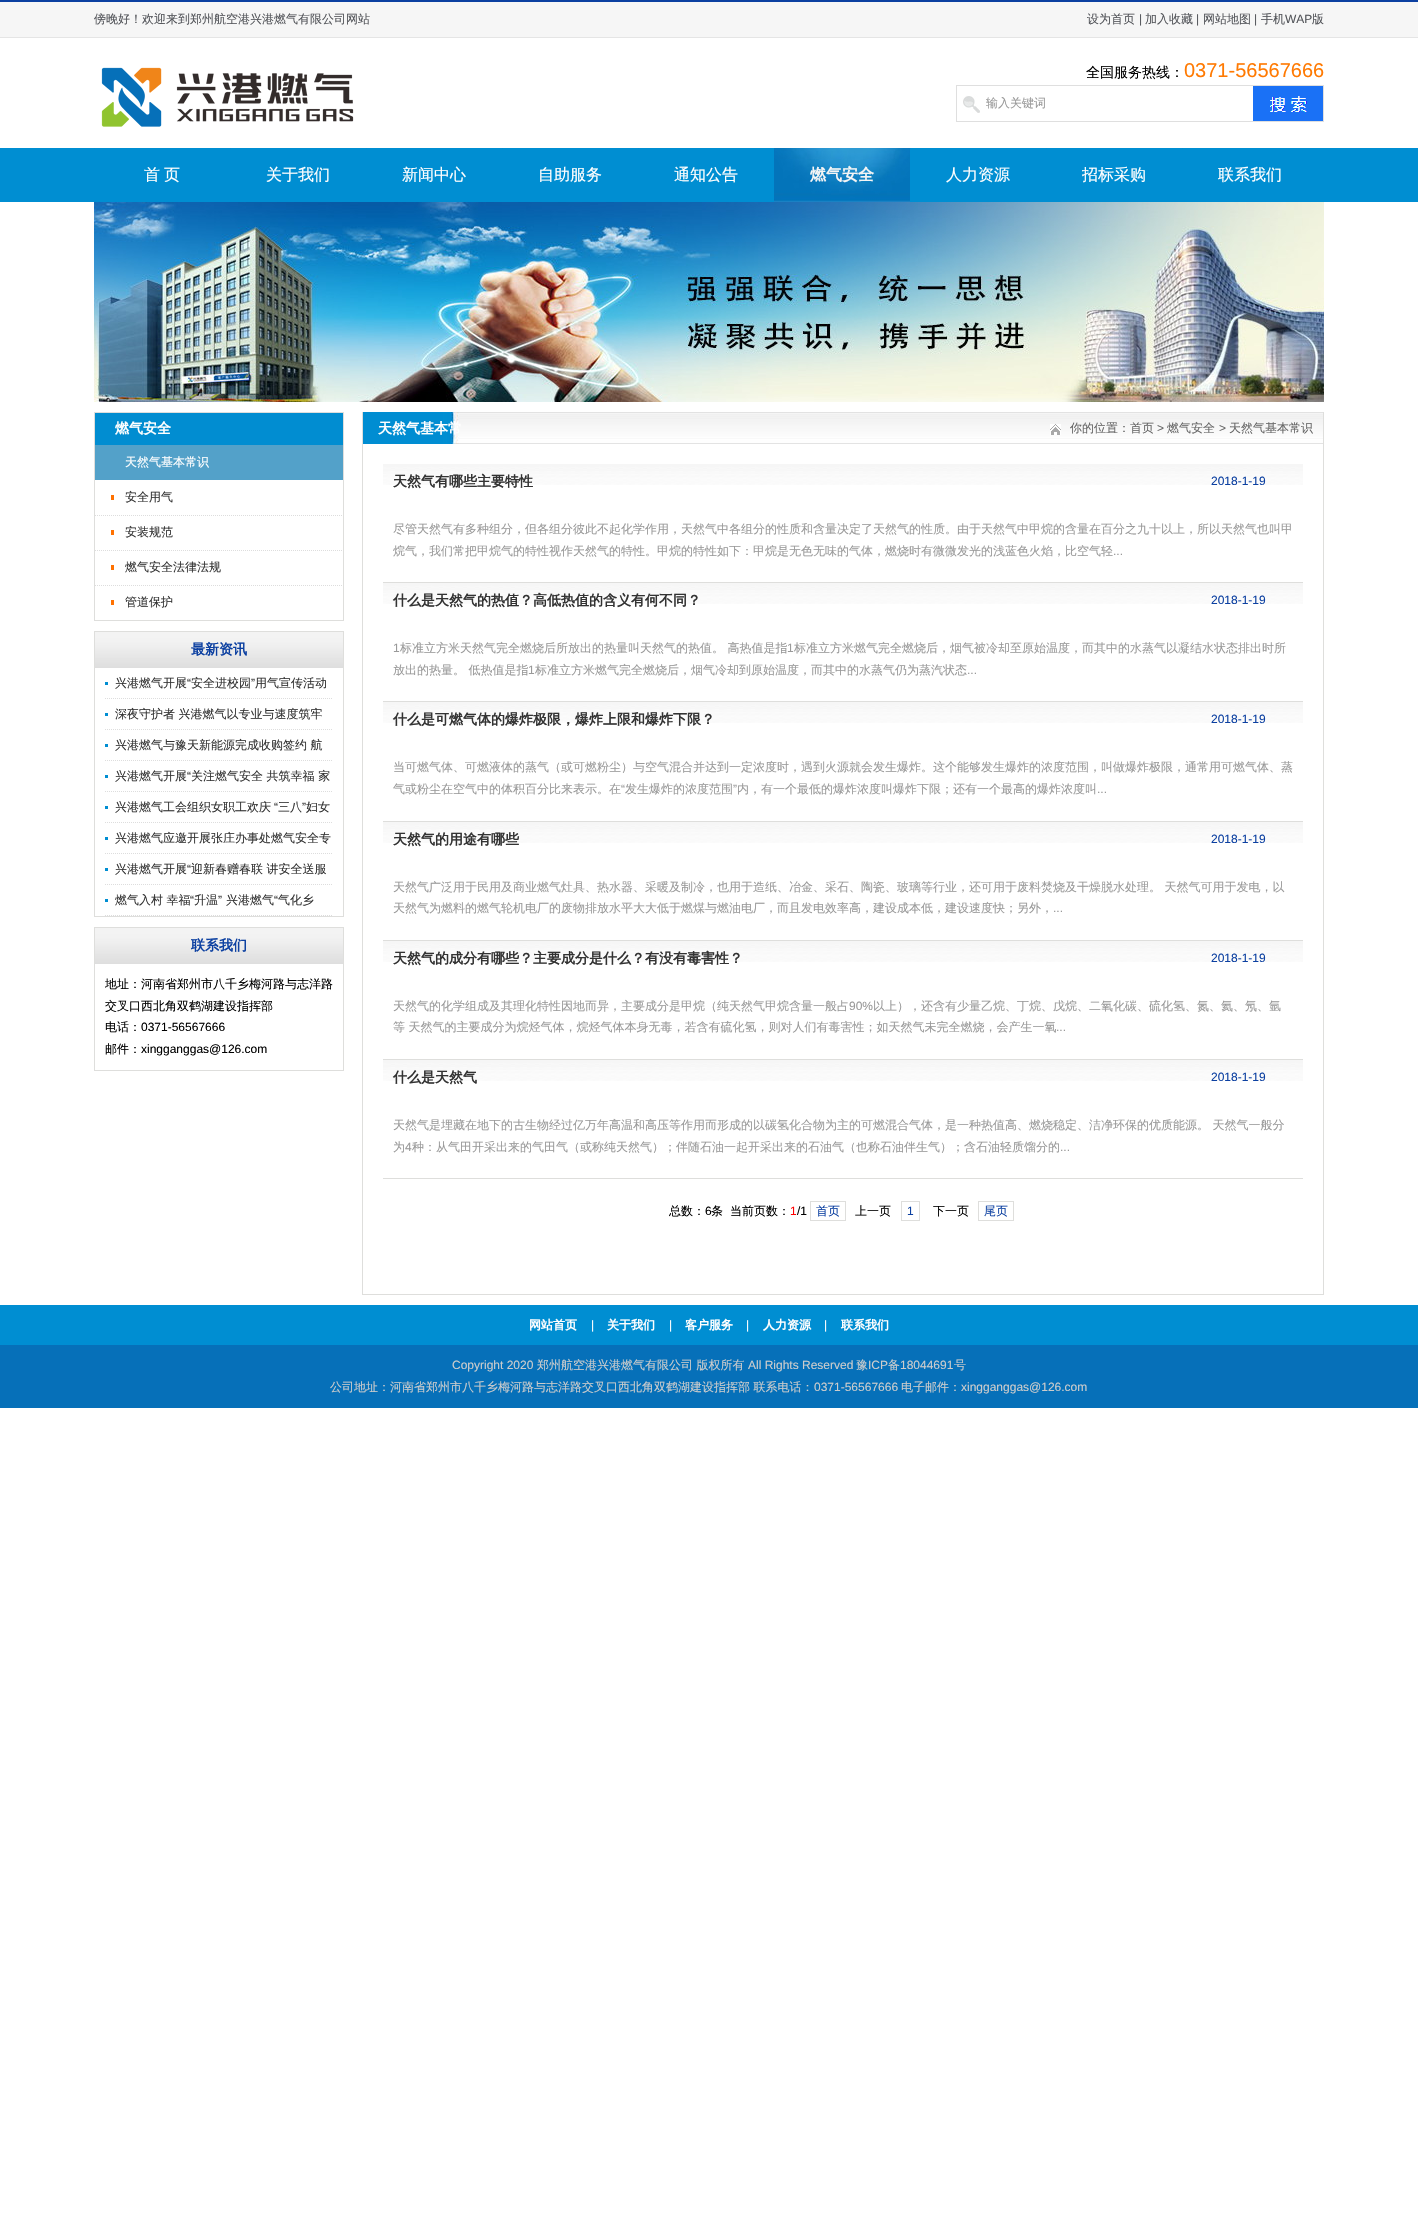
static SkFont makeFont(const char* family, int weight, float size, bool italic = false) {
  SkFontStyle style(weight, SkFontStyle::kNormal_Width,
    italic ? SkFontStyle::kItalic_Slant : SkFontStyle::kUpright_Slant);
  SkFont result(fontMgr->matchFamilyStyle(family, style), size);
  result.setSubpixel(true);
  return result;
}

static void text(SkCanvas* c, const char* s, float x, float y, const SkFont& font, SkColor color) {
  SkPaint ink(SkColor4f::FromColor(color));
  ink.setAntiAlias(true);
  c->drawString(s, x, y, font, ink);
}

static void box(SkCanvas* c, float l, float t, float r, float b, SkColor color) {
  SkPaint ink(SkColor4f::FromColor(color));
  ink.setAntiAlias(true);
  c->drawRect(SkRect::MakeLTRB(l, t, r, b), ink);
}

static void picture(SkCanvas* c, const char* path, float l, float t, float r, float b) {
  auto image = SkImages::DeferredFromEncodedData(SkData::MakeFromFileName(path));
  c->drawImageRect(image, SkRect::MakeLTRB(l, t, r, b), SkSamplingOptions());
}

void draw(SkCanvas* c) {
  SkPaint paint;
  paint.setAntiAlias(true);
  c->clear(0xffffffff);
  box(c, 0, 2, 1418, 37, 0xfff6f6f6);
  box(c, 0, 0, 1418, 2, 0xff0c40a1);
  box(c, 0, 37, 1418, 38, 0xffe5e5e5);
  SkFont face1 = makeFont("WenQuanYi Zen Hei", 500, 12);
  text(c, "傍晚好！欢迎来到郑州航空港兴港燃气有限公司网站", 94, 23, face1, 0xff53555a);
  text(c, "设为首页", 1087, 23, face1, 0xff53555a);
  SkFont face2 = makeFont("Liberation Sans", 400, 12);
  text(c, "|", 1139, 23, face2, 0xff53555a);
  text(c, "加入收藏", 1145, 23, face1, 0xff53555a);
  text(c, "|", 1196, 23, face2, 0xff53555a);
  text(c, "网站地图", 1203, 23, face1, 0xff53555a);
  text(c, "|", 1254, 23, face2, 0xff53555a);
  text(c, "手机", 1261, 23, face1, 0xff53555a);
  text(c, "WAP", 1285, 23, face2, 0xff53555a);
  text(c, "版", 1312, 23, face1, 0xff53555a);
  picture(c, "img_01.png", 101, 67, 354, 127);
  SkFont face3 = makeFont("WenQuanYi Zen Hei", 500, 14);
  text(c, "全国服务热线：", 1086, 77, face3, 0xff000000);
  SkFont face4 = makeFont("Liberation Sans", 400, 20);
  text(c, "0371-56567666", 1184, 77, face4, 0xffff7a02);
  picture(c, "img_02.png", 956, 85, 1324, 122);
  text(c, "输入关键词", 986, 107, face1, 0xff999999);
  box(c, 0, 148, 1418, 202, 0xff008ed2);
  box(c, 94, 148, 95, 149, 0xff0389ce);
  SkFont face5 = makeFont("WenQuanYi Zen Hei", 500, 16);
  text(c, "首", 144, 180, face5, 0xffffffff);
  text(c, "页", 164, 180, face5, 0xffffffff);
  box(c, 230, 148, 231, 149, 0xff0389ce);
  text(c, "关于我们", 266, 180, face5, 0xffffffff);
  box(c, 366, 148, 367, 149, 0xff0389ce);
  text(c, "新闻中心", 402, 180, face5, 0xffffffff);
  box(c, 502, 148, 503, 149, 0xff0389ce);
  text(c, "自助服务", 538, 180, face5, 0xffffffff);
  box(c, 638, 148, 639, 149, 0xff0389ce);
  text(c, "通知公告", 674, 180, face5, 0xffffffff);
  picture(c, "img_03.png", 774, 148, 910, 202);
  SkFont face6 = makeFont("WenQuanYi Zen Hei", 700, 16);
  text(c, "燃气安全", 810, 180, face6, 0xfff5f5f5);
  box(c, 910, 148, 911, 149, 0xff0389ce);
  text(c, "人力资源", 946, 180, face5, 0xffffffff);
  box(c, 1046, 148, 1047, 149, 0xff0389ce);
  text(c, "招标采购", 1082, 180, face5, 0xffffffff);
  box(c, 1182, 148, 1183, 149, 0xff0389ce);
  text(c, "联系我们", 1218, 180, face5, 0xffffffff);
  picture(c, "img_04.png", 94, 202, 1324, 402);
  paint.setStyle(SkPaint::kStroke_Style);
  paint.setStrokeWidth(1);
  paint.setColor(0xffdededc);
  c->drawRect(SkRect::MakeLTRB(94.5f, 412.5f, 343.5f, 620.5f), paint);
  box(c, 95, 413, 343, 445, 0xff018dd1);
  SkFont face7 = makeFont("WenQuanYi Zen Hei", 700, 14);
  text(c, "燃气安全", 115, 433, face7, 0xffffffff);
  box(c, 95, 445, 343, 480, 0xff53a1c9);
  text(c, "天然气基本常识", 125, 466, face1, 0xffffffff);
  box(c, 111, 495, 114, 500, 0xffff7100);
  paint.setColor(0xffdddddd);
  paint.setPathEffect(SkDashPathEffect::Make({{1, 1}}, 0));
  c->drawPath(SkPathBuilder().moveTo(95, 515.5f).lineTo(343, 515.5f).detach(), paint);
  paint.setPathEffect(nullptr);
  text(c, "安全用气", 125, 501, face1, 0xff333333);
  box(c, 111, 530, 114, 535, 0xffff7100);
  paint.setPathEffect(SkDashPathEffect::Make({{1, 1}}, 0));
  c->drawPath(SkPathBuilder().moveTo(95, 550.5f).lineTo(343, 550.5f).detach(), paint);
  paint.setPathEffect(nullptr);
  text(c, "安装规范", 125, 536, face1, 0xff333333);
  box(c, 111, 565, 114, 570, 0xffff7100);
  paint.setPathEffect(SkDashPathEffect::Make({{1, 1}}, 0));
  c->drawPath(SkPathBuilder().moveTo(95, 585.5f).lineTo(343, 585.5f).detach(), paint);
  paint.setPathEffect(nullptr);
  text(c, "燃气安全法律法规", 125, 571, face1, 0xff333333);
  box(c, 111, 600, 114, 605, 0xffff7100);
  text(c, "管道保护", 125, 606, face1, 0xff333333);
  paint.setColor(0xffdededc);
  c->drawRect(SkRect::MakeLTRB(94.5f, 631.5f, 343.5f, 916.5f), paint);
  picture(c, "img_05.png", 95, 632, 343, 668);
  text(c, "最新资讯", 191, 654, face7, 0xff0c40a1);
  box(c, 105, 682, 108, 685, 0xff008ed2);
  paint.setColor(0xffdddddd);
  paint.setPathEffect(SkDashPathEffect::Make({{1, 1}}, 0));
  c->drawPath(SkPathBuilder().moveTo(105, 698.5f).lineTo(333, 698.5f).detach(), paint);
  paint.setPathEffect(nullptr);
  text(c, "兴港燃气开展", 115, 687, face1, 0xff333333);
  text(c, "“", 187, 687, face2, 0xff333333);
  text(c, "安全进校园", 191, 687, face1, 0xff333333);
  text(c, "”", 251, 687, face2, 0xff333333);
  text(c, "用气宣传活动", 255, 687, face1, 0xff333333);
  box(c, 105, 713, 108, 716, 0xff008ed2);
  paint.setPathEffect(SkDashPathEffect::Make({{1, 1}}, 0));
  c->drawPath(SkPathBuilder().moveTo(105, 729.5f).lineTo(333, 729.5f).detach(), paint);
  paint.setPathEffect(nullptr);
  text(c, "深夜守护者 兴港燃气以专业与速度筑牢", 115, 718, face1, 0xff333333);
  box(c, 105, 744, 108, 747, 0xff008ed2);
  paint.setPathEffect(SkDashPathEffect::Make({{1, 1}}, 0));
  c->drawPath(SkPathBuilder().moveTo(105, 760.5f).lineTo(333, 760.5f).detach(), paint);
  paint.setPathEffect(nullptr);
  text(c, "兴港燃气与豫天新能源完成收购签约 航", 115, 749, face1, 0xff333333);
  box(c, 105, 775, 108, 778, 0xff008ed2);
  paint.setPathEffect(SkDashPathEffect::Make({{1, 1}}, 0));
  c->drawPath(SkPathBuilder().moveTo(105, 791.5f).lineTo(333, 791.5f).detach(), paint);
  paint.setPathEffect(nullptr);
  text(c, "兴港燃气开展", 115, 780, face1, 0xff333333);
  text(c, "“", 187, 780, face2, 0xff333333);
  text(c, "关注燃气安全 共筑幸福 家", 191, 780, face1, 0xff333333);
  box(c, 105, 806, 108, 809, 0xff008ed2);
  paint.setPathEffect(SkDashPathEffect::Make({{1, 1}}, 0));
  c->drawPath(SkPathBuilder().moveTo(105, 822.5f).lineTo(333, 822.5f).detach(), paint);
  paint.setPathEffect(nullptr);
  text(c, "兴港燃气工会组织女职工欢庆", 115, 811, face1, 0xff333333);
  text(c, "“", 274, 811, face2, 0xff333333);
  text(c, "三八", 278, 811, face1, 0xff333333);
  text(c, "”", 302, 811, face2, 0xff333333);
  text(c, "妇女", 306, 811, face1, 0xff333333);
  box(c, 105, 837, 108, 840, 0xff008ed2);
  paint.setPathEffect(SkDashPathEffect::Make({{1, 1}}, 0));
  c->drawPath(SkPathBuilder().moveTo(105, 853.5f).lineTo(333, 853.5f).detach(), paint);
  paint.setPathEffect(nullptr);
  text(c, "兴港燃气应邀开展张庄办事处燃气安全专", 115, 842, face1, 0xff333333);
  box(c, 105, 868, 108, 871, 0xff008ed2);
  paint.setPathEffect(SkDashPathEffect::Make({{1, 1}}, 0));
  c->drawPath(SkPathBuilder().moveTo(105, 884.5f).lineTo(333, 884.5f).detach(), paint);
  paint.setPathEffect(nullptr);
  text(c, "兴港燃气开展", 115, 873, face1, 0xff333333);
  text(c, "“", 187, 873, face2, 0xff333333);
  text(c, "迎新春赠春联 讲安全送服", 191, 873, face1, 0xff333333);
  box(c, 105, 899, 108, 902, 0xff008ed2);
  paint.setPathEffect(SkDashPathEffect::Make({{1, 1}}, 0));
  c->drawPath(SkPathBuilder().moveTo(105, 915.5f).lineTo(333, 915.5f).detach(), paint);
  paint.setPathEffect(nullptr);
  text(c, "燃气入村 幸福", 115, 904, face1, 0xff333333);
  text(c, "“", 190, 904, face2, 0xff333333);
  text(c, "升温", 194, 904, face1, 0xff333333);
  text(c, "”", 218, 904, face2, 0xff333333);
  text(c, "兴港燃气", 226, 904, face1, 0xff333333);
  text(c, "“", 274, 904, face2, 0xff333333);
  text(c, "气化乡", 278, 904, face1, 0xff333333);
  paint.setColor(0xffdededc);
  c->drawRect(SkRect::MakeLTRB(94.5f, 927.5f, 343.5f, 1070.5f), paint);
  picture(c, "img_05.png", 95, 928, 343, 964);
  text(c, "联系我们", 191, 950, face7, 0xff0c40a1);
  text(c, "地址：河南省郑州市八千乡梅河路与志洋路", 105, 988, face1, 0xff000000);
  text(c, "交叉口西北角双鹤湖建设指挥部", 105, 1010, face1, 0xff000000);
  text(c, "电话：", 105, 1031, face1, 0xff000000);
  text(c, "0371-56567666", 141, 1031, face2, 0xff000000);
  text(c, "邮件：", 105, 1053, face1, 0xff000000);
  text(c, "xingganggas@126.com", 141, 1053, face2, 0xff000000);
  box(c, 1323, 412, 1324, 1295, 0xffdededc);
  box(c, 362, 1294, 1324, 1295, 0xffdededc);
  box(c, 362, 412, 363, 1295, 0xffdededc);
  picture(c, "img_06.png", 363, 412, 1323, 444);
  text(c, "天然气基本常", 378, 433, face7, 0xffffffff);
  picture(c, "img_07.png", 1050, 424, 1061, 435);
  text(c, "你的位置：首页", 1070, 432, face1, 0xff666666);
  text(c, ">", 1157, 432, face2, 0xff666666);
  text(c, "燃气安全", 1167, 432, face1, 0xff666666);
  text(c, ">", 1219, 432, face2, 0xff666666);
  text(c, "天然气基本常识", 1229, 432, face1, 0xff666666);
  picture(c, "img_08.png", 383, 464, 1211, 485);
  text(c, "天然气有哪些主要特性", 393, 486, face7, 0xff333333);
  picture(c, "img_09.png", 1211, 464, 1303, 485);
  text(c, "2018-1-19", 1211, 485, face2, 0xff0c40a1);
  box(c, 383, 582, 1303, 583, 0xffdededc);
  text(c, "尽管天然气有多种组分，但各组分彼此不起化学作用，天然气中各组分的性质和含量决定了天然气的性质。由于天然气中甲烷的含量在百分之九十以上，所以天然气也叫甲", 393, 533, face1, 0xff999999);
  text(c, "烷气，我们常把甲烷气的特性视作天然气的特性。甲烷的特性如下：甲烷是无色无味的气体，燃烧时有微微发光的浅蓝色火焰，比空气轻", 393, 555, face1, 0xff999999);
  text(c, "...", 1113, 555, face2, 0xff999999);
  picture(c, "img_08.png", 383, 583, 1211, 604);
  text(c, "什么是天然气的热值？高低热值的含义有何不同？", 393, 605, face7, 0xff333333);
  picture(c, "img_09.png", 1211, 583, 1303, 604);
  text(c, "2018-1-19", 1211, 604, face2, 0xff0c40a1);
  box(c, 383, 701, 1303, 702, 0xffdededc);
  text(c, "1", 393, 652, face2, 0xff999999);
  text(c, "标准立方米天然气完全燃烧后所放出的热量叫天然气的热值。 高热值是指", 400, 652, face1, 0xff999999);
  text(c, "1", 787, 652, face2, 0xff999999);
  text(c, "标准立方米燃气完全燃烧后，烟气被冷却至原始温度，而其中的水蒸气以凝结水状态排出时所", 794, 652, face1, 0xff999999);
  text(c, "放出的热量。 低热值是指", 393, 674, face1, 0xff999999);
  text(c, "1", 528, 674, face2, 0xff999999);
  text(c, "标准立方米燃气完全燃烧后，烟气冷却到原始温度，而其中的水蒸气仍为蒸汽状态", 535, 674, face1, 0xff999999);
  text(c, "...", 967, 674, face2, 0xff999999);
  picture(c, "img_08.png", 383, 702, 1211, 723);
  text(c, "什么是可燃气体的爆炸极限，爆炸上限和爆炸下限？", 393, 724, face7, 0xff333333);
  picture(c, "img_09.png", 1211, 702, 1303, 723);
  text(c, "2018-1-19", 1211, 723, face2, 0xff0c40a1);
  box(c, 383, 821, 1303, 822, 0xffdededc);
  text(c, "当可燃气体、可燃液体的蒸气（或可燃粉尘）与空气混合并达到一定浓度时，遇到火源就会发生爆炸。这个能够发生爆炸的浓度范围，叫做爆炸极限，通常用可燃气体、蒸", 393, 771, face1, 0xff999999);
  text(c, "气或粉尘在空气中的体积百分比来表示。在", 393, 793, face1, 0xff999999);
  text(c, "“", 621, 793, face2, 0xff999999);
  text(c, "发生爆炸的浓度范围", 625, 793, face1, 0xff999999);
  text(c, "”", 733, 793, face2, 0xff999999);
  text(c, "内，有一个最低的爆炸浓度叫爆炸下限；还有一个最高的爆炸浓度叫", 737, 793, face1, 0xff999999);
  text(c, "...", 1097, 793, face2, 0xff999999);
  picture(c, "img_08.png", 383, 822, 1211, 843);
  text(c, "天然气的用途有哪些", 393, 844, face7, 0xff333333);
  picture(c, "img_09.png", 1211, 822, 1303, 843);
  text(c, "2018-1-19", 1211, 843, face2, 0xff0c40a1);
  box(c, 383, 940, 1303, 941, 0xffdededc);
  text(c, "天然气广泛用于民用及商业燃气灶具、热水器、采暖及制冷，也用于造纸、冶金、采石、陶瓷、玻璃等行业，还可用于废料焚烧及干燥脱水处理。 天然气可用于发电，以", 393, 891, face1, 0xff999999);
  text(c, "天然气为燃料的燃气轮机电厂的废物排放水平大大低于燃煤与燃油电厂，而且发电效率高，建设成本低，建设速度快；另外，", 393, 912, face1, 0xff999999);
  text(c, "...", 1053, 912, face2, 0xff999999);
  picture(c, "img_08.png", 383, 941, 1211, 962);
  text(c, "天然气的成分有哪些？主要成分是什么？有没有毒害性？", 393, 963, face7, 0xff333333);
  picture(c, "img_09.png", 1211, 941, 1303, 962);
  text(c, "2018-1-19", 1211, 962, face2, 0xff0c40a1);
  box(c, 383, 1059, 1303, 1060, 0xffdededc);
  text(c, "天然气的化学组成及其理化特性因地而异，主要成分是甲烷（纯天然气甲烷含量一般占", 393, 1010, face1, 0xff999999);
  text(c, "90%", 849, 1010, face2, 0xff999999);
  text(c, "以上），还含有少量乙烷、丁烷、戊烷、二氧化碳、硫化氢、氮、氦、氖、氩", 873, 1010, face1, 0xff999999);
  text(c, "等 天然气的主要成分为烷烃气体，烷烃气体本身无毒，若含有硫化氢，则对人们有毒害性；如天然气未完全燃烧，会产生一氧", 393, 1031, face1, 0xff999999);
  text(c, "...", 1056, 1031, face2, 0xff999999);
  picture(c, "img_08.png", 383, 1060, 1211, 1081);
  text(c, "什么是天然气", 393, 1082, face7, 0xff333333);
  picture(c, "img_09.png", 1211, 1060, 1303, 1081);
  text(c, "2018-1-19", 1211, 1081, face2, 0xff0c40a1);
  box(c, 383, 1178, 1303, 1179, 0xffdededc);
  text(c, "天然气是埋藏在地下的古生物经过亿万年高温和高压等作用而形成的以碳氢化合物为主的可燃混合气体，是一种热值高、燃烧稳定、洁净环保的优质能源。 天然气一般分", 393, 1129, face1, 0xff999999);
  text(c, "为", 393, 1151, face1, 0xff999999);
  text(c, "4", 405, 1151, face2, 0xff999999);
  text(c, "种：从气田开采出来的气田气（或称纯天然气）；伴随石油一起开采出来的石油气（也称石油伴生气）；含石油轻质馏分的", 412, 1151, face1, 0xff999999);
  text(c, "...", 1060, 1151, face2, 0xff999999);
  text(c, "总数：", 669, 1215, face1, 0xff000000);
  text(c, "6", 705, 1215, face2, 0xff000000);
  text(c, "条", 711, 1215, face1, 0xff000000);
  text(c, "当前页数：", 730, 1215, face1, 0xff000000);
  text(c, "1", 790, 1215, face2, 0xffff0000);
  text(c, "/1", 797, 1215, face2, 0xff000000);
  c->drawRect(SkRect::MakeLTRB(810.5f, 1201.5f, 845.5f, 1220.5f), paint);
  text(c, "首页", 816, 1215, face1, 0xff0c40a1);
  text(c, "上一页", 855, 1215, face1, 0xff000000);
  c->drawRect(SkRect::MakeLTRB(901.5f, 1201.5f, 919.5f, 1220.5f), paint);
  text(c, "1", 907, 1215, face2, 0xff0c40a1);
  text(c, "下一页", 933, 1215, face1, 0xff000000);
  c->drawRect(SkRect::MakeLTRB(978.5f, 1201.5f, 1013.5f, 1220.5f), paint);
  text(c, "尾页", 984, 1215, face1, 0xff0c40a1);
  box(c, 0, 1345, 1418, 1408, 0xff0670b9);
  box(c, 0, 1305, 1418, 1345, 0xff008ed2);
  SkFont face8 = makeFont("WenQuanYi Zen Hei", 700, 12);
  text(c, "网站首页", 529, 1329, face8, 0xffffffff);
  text(c, "|", 591, 1329, face2, 0xffffffff);
  text(c, "关于我们", 607, 1329, face8, 0xffffffff);
  text(c, "|", 669, 1329, face2, 0xffffffff);
  text(c, "客户服务", 685, 1329, face8, 0xffffffff);
  text(c, "|", 746, 1329, face2, 0xffffffff);
  text(c, "人力资源", 763, 1329, face8, 0xffffffff);
  text(c, "|", 824, 1329, face2, 0xffffffff);
  text(c, "联系我们", 841, 1329, face8, 0xffffffff);
  text(c, "Copyright 2020", 452, 1369, face2, 0xffcccccc);
  text(c, "郑州航空港兴港燃气有限公司 版权所有", 537, 1369, face1, 0xffcccccc);
  text(c, "All Rights Reserved", 748, 1369, face2, 0xffcccccc);
  text(c, "豫", 856, 1369, face1, 0xffcccccc);
  text(c, "ICP", 868, 1369, face2, 0xffcccccc);
  text(c, "备", 888, 1369, face1, 0xffcccccc);
  text(c, "18044691", 900, 1369, face2, 0xffcccccc);
  text(c, "号", 954, 1369, face1, 0xffcccccc);
  text(c, "公司地址：河南省郑州市八千乡梅河路与志洋路交叉口西北角双鹤湖建设指挥部 联系电话：", 330, 1391, face1, 0xffcccccc);
  text(c, "0371-56567666", 814, 1391, face2, 0xffcccccc);
  text(c, "电子邮件：", 901, 1391, face1, 0xffcccccc);
  text(c, "xingganggas@126.com", 961, 1391, face2, 0xffcccccc);
}
